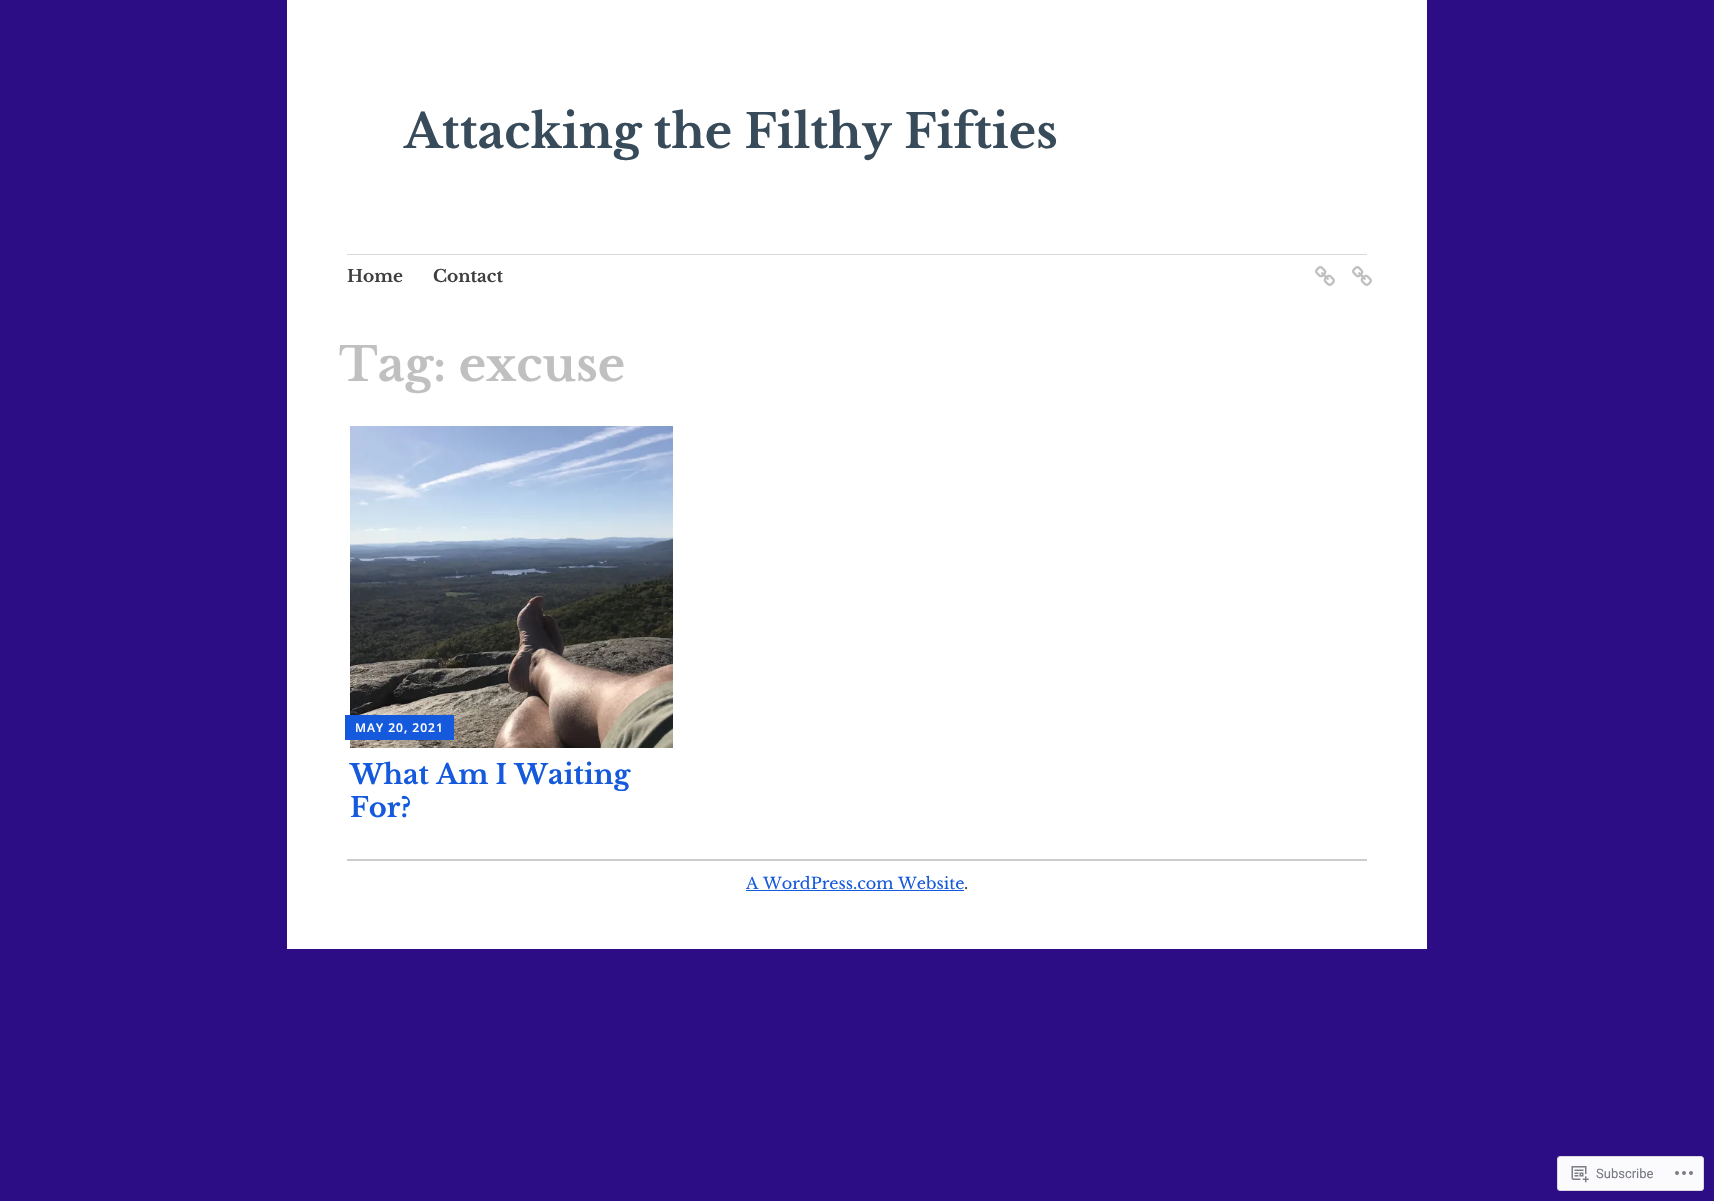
static SkFont makeFont(const char* family, int weight, float size, bool italic = false) {
  SkFontStyle style(weight, SkFontStyle::kNormal_Width,
    italic ? SkFontStyle::kItalic_Slant : SkFontStyle::kUpright_Slant);
  SkFont result(fontMgr->matchFamilyStyle(family, style), size);
  result.setSubpixel(true);
  return result;
}

static void text(SkCanvas* c, const char* s, float x, float y, const SkFont& font, SkColor color) {
  SkPaint ink(SkColor4f::FromColor(color));
  ink.setAntiAlias(true);
  c->drawString(s, x, y, font, ink);
}

static void spacedText(SkCanvas* c, const char* s, float x, float y, const SkFont& font, const SkPaint& ink, float letter, float word) {
  std::vector<SkGlyphID> glyphs(font.countText(s, strlen(s), SkTextEncoding::kUTF8));
  std::vector<float> xs(glyphs.size());
  font.textToGlyphs(s, strlen(s), SkTextEncoding::kUTF8, glyphs);
  font.getXPos(glyphs, xs, x);
  float extra = 0;
  for (size_t i = 0; i < glyphs.size(); i++) {
    xs[i] += extra;
    extra += letter + word * (glyphs[i] == font.unicharToGlyph(' '));
  }
  c->drawTextBlob(SkTextBlob::MakeFromPosHGlyphs(glyphs, xs, y, font), 0, 0, ink);
}

static void box(SkCanvas* c, float l, float t, float r, float b, SkColor color) {
  SkPaint ink(SkColor4f::FromColor(color));
  ink.setAntiAlias(true);
  c->drawRect(SkRect::MakeLTRB(l, t, r, b), ink);
}

static void picture(SkCanvas* c, const char* path, float l, float t, float r, float b) {
  auto image = SkImages::DeferredFromEncodedData(SkData::MakeFromFileName(path));
  c->drawImageRect(image, SkRect::MakeLTRB(l, t, r, b), SkSamplingOptions());
}

void draw(SkCanvas* c) {
  SkPaint paint;
  paint.setAntiAlias(true);
  c->clear(0xff2d0d85);
  box(c, 287, 0, 1427, 949, 0xffffffff);
  SkFont face1 = makeFont("Libre Baskerville", 700, 46.75f);
  text(c, "Attacking the Filthy Fifties", 404, 148, face1, 0xff384b5b);
  box(c, 347, 254, 1367, 255, 0xffd9d9d9);
  SkFont face2 = makeFont("Libre Baskerville", 700, 17);
  text(c, "Home", 347, 282, face2, 0xff404040);
  text(c, "Contact", 433, 282, face2, 0xff404040);
  picture(c, "img_01.png", 1315, 266, 1335, 286);
  picture(c, "img_01.png", 1352, 266, 1372, 286);
  text(c, "Tag: excuse", 339, 381, face1, 0xffc0c0c0);
  picture(c, "img_02.png", 350, 426, 673, 748);
  box(c, 345, 715, 454, 740, 0xff155add);
  SkFont face3 = makeFont("Open Sans", 600, 12);
  paint.setColor(0xffffffff);
  spacedText(c, "MAY 20, 2021", 355, 732, face3, paint, 1, 0);
  SkFont face4 = makeFont("Libre Baskerville", 700, 27.25f);
  text(c, "What Am I Waiting", 350, 784, face4, 0xff155add);
  text(c, "For?", 350, 817, face4, 0xff155add);
  box(c, 347, 859, 1367, 861, 0xffcccccc);
  SkFont face5 = makeFont("Libre Baskerville", 400, 16);
  text(c, "A WordPress.com Website", 746, 889, face5, 0xff155add);
  box(c, 746, 890, 964, 891, 0xff155add);
  text(c, ".", 964, 889, face5, 0xff404040);
  paint.setColor(0xfffbfafd);
  c->drawRoundRect(SkRect::MakeLTRB(1557.5f, 1156.5f, 1703.5f, 1190.5f), 2.5f, 2.5f, paint);
  paint.setStyle(SkPaint::kStroke_Style);
  paint.setStrokeWidth(1);
  paint.setColor(0xffd9d8dc);
  c->drawRoundRect(SkRect::MakeLTRB(1557.5f, 1156.5f, 1703.5f, 1190.5f), 2.5f, 2.5f, paint);
  picture(c, "img_03.png", 1571, 1166, 1589, 1183);
  SkFont face6 = makeFont("Roboto", 400, 13);
  text(c, "Subscribe", 1596, 1178, face6, 0xff777a82);
  picture(c, "img_04.png", 1675, 1171, 1693, 1175);
}
